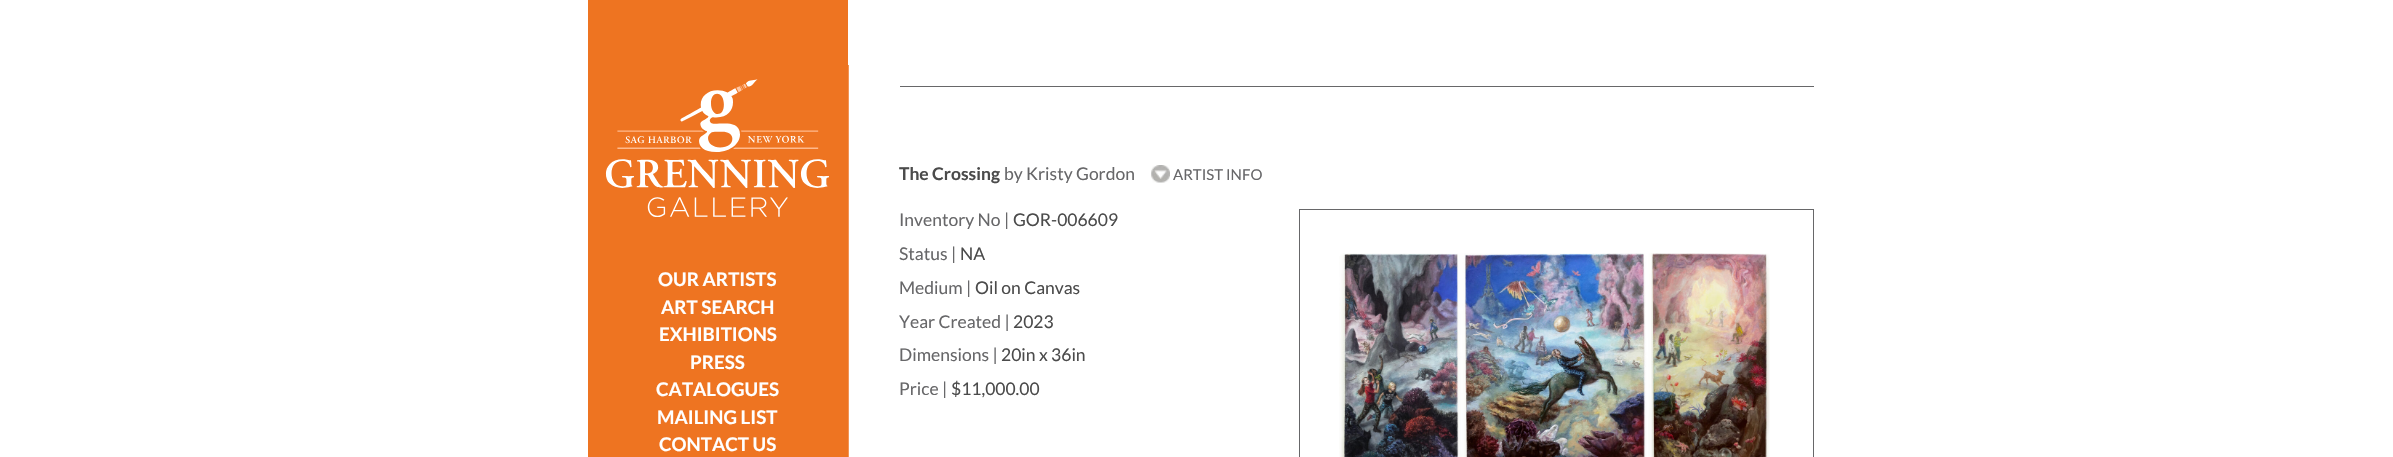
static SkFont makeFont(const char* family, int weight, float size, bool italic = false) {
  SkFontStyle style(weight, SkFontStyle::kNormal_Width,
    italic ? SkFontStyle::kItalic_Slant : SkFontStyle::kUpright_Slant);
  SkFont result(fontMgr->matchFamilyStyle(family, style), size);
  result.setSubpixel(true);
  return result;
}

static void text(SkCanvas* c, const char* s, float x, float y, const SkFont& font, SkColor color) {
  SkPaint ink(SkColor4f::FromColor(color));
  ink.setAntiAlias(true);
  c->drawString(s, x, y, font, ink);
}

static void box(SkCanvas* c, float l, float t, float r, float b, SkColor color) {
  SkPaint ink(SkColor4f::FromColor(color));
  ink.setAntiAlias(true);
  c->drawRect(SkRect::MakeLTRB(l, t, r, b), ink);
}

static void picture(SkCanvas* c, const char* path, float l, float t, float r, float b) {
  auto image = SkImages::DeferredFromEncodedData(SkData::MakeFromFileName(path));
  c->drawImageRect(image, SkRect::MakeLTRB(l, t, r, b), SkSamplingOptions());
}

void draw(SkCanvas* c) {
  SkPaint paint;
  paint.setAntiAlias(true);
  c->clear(0xffffffff);
  box(c, 588, 0, 848, 457, 0xffee7421);
  picture(c, "img_01.png", 605, 79, 829, 217);
  SkFont face1 = makeFont("Lato", 700, 18.75f);
  text(c, "OUR ARTISTS", 658, 286, face1, 0xffffffff);
  text(c, "ART SEARCH", 661, 314, face1, 0xffffffff);
  text(c, "EXHIBITIONS", 659, 341, face1, 0xffffffff);
  text(c, "PRESS", 690, 369, face1, 0xffffffff);
  text(c, "CATALOGUES", 656, 396, face1, 0xffffffff);
  text(c, "MAILING LIST", 657, 424, face1, 0xffffffff);
  text(c, "CONTACT US", 659, 451, face1, 0xffffffff);
  picture(c, "img_02.png", 848, 65, 849, 457);
  box(c, 900, 86, 1814, 87, 0xff676769);
  SkFont face2 = makeFont("Lato", 700, 17.5f);
  text(c, "The Crossing", 899, 180, face2, 0xff4b4b4b);
  SkFont face3 = makeFont("Lato", 400, 17.5f);
  text(c, "by Kristy Gordon", 1004, 180, face3, 0xff676769);
  picture(c, "img_03.png", 1151, 165, 1170, 183);
  SkFont face4 = makeFont("Lato", 400, 15);
  text(c, "ARTIST INFO", 1173, 180, face4, 0xff676769);
  text(c, "Inventory No |", 899, 226, face3, 0xff676769);
  text(c, "GOR-006609", 1013, 226, face3, 0xff4b4b4b);
  text(c, "Status |", 899, 260, face3, 0xff676769);
  text(c, "NA", 960, 260, face3, 0xff4b4b4b);
  text(c, "Medium |", 899, 294, face3, 0xff676769);
  text(c, "Oil on Canvas", 975, 294, face3, 0xff4b4b4b);
  text(c, "Year Created |", 899, 328, face3, 0xff676769);
  text(c, "2023", 1013, 328, face3, 0xff4b4b4b);
  text(c, "Dimensions |", 899, 361, face3, 0xff676769);
  text(c, "20in x 36in", 1001, 361, face3, 0xff4b4b4b);
  text(c, "Price |", 899, 395, face3, 0xff676769);
  text(c, "$11,000.00", 951, 395, face3, 0xff4b4b4b);
  paint.setStyle(SkPaint::kStroke_Style);
  paint.setStrokeWidth(1);
  paint.setColor(0xff676769);
  c->drawRect(SkRect::MakeLTRB(1299.5f, 209.5f, 1813.5f, 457.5f), paint);
  picture(c, "img_04.png", 1339, 253, 1770, 457);
}
